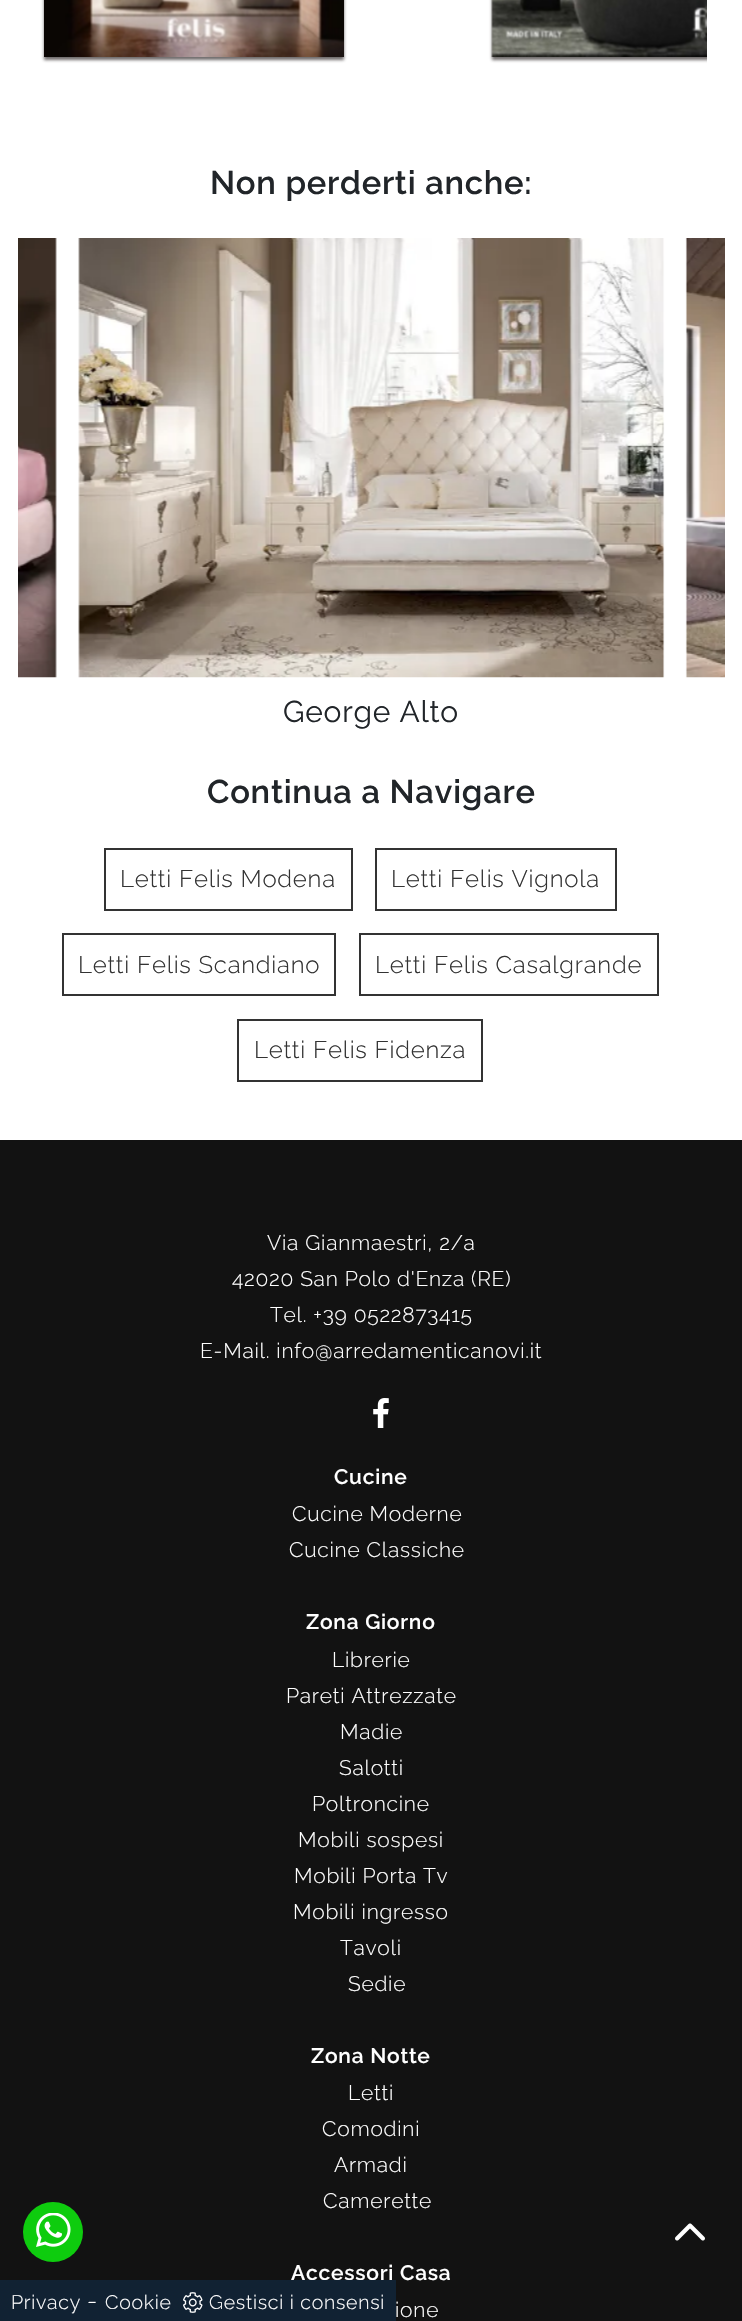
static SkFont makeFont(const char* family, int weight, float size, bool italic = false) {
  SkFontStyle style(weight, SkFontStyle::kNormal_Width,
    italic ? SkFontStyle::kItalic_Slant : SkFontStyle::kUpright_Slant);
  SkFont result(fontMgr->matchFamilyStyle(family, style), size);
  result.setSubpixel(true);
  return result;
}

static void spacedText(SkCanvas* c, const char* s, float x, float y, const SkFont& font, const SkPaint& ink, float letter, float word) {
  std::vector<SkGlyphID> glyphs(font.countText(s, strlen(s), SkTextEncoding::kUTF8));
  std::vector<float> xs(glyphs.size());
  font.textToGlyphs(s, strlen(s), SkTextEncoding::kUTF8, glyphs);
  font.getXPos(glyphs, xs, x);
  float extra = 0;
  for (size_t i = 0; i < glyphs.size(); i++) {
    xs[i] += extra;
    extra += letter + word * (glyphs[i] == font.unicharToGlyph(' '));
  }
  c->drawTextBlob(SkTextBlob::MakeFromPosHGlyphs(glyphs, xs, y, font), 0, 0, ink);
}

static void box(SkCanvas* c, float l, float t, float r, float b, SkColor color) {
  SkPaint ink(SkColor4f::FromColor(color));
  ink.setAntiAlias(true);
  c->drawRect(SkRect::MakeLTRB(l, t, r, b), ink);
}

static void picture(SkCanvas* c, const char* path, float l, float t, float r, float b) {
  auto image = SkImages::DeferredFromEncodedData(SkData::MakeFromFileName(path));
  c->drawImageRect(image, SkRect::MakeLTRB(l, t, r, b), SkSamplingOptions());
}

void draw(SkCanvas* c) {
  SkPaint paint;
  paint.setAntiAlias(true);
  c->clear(0xffffffff);
  paint.setColor(0xb8373232);
  paint.setMaskFilter(SkMaskFilter::MakeBlur(kNormal_SkBlurStyle, 1.5f));
  c->drawRect(SkRect::MakeLTRB(44, -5, 344, 60), paint);
  paint.setMaskFilter(nullptr);
  picture(c, "img_01.png", 44, 0, 344, 57);
  c->save();
  c->clipRect(SkRect::MakeLTRB(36, 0, 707, 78));
  paint.setMaskFilter(SkMaskFilter::MakeBlur(kNormal_SkBlurStyle, 1.5f));
  c->drawRect(SkRect::MakeLTRB(492, -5, 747, 60), paint);
  paint.setMaskFilter(nullptr);
  c->restore();
  picture(c, "img_02.png", 491, 0, 707, 57);
  SkFont face1 = makeFont("Raleway", 600, 32.75f);
  paint.setColor(0xff212529);
  spacedText(c, "Non perderti anche:", 210, 194, face1, paint, 0.75f, 0);
  picture(c, "img_03.png", 18, 238, 57, 678);
  picture(c, "img_04.png", 685, 238, 725, 678);
  picture(c, "img_05.png", 78, 238, 665, 678);
  SkFont face2 = makeFont("Raleway", 400, 30);
  spacedText(c, "George Alto", 283, 722, face2, paint, 0.75f, 0);
  spacedText(c, "Continua a Navigare", 207, 803, face1, paint, 0.75f, 0);
  paint.setStyle(SkPaint::kStroke_Style);
  paint.setStrokeWidth(2);
  paint.setColor(0xff333333);
  c->drawRect(SkRect::MakeLTRB(105, 849, 352, 910), paint);
  SkFont face3 = makeFont("Raleway", 300, 24);
  paint.setStyle(SkPaint::kFill_Style);
  spacedText(c, "Letti Felis Modena", 120, 887, face3, paint, 0.75f, 0);
  paint.setStyle(SkPaint::kStroke_Style);
  c->drawRect(SkRect::MakeLTRB(376, 849, 616, 910), paint);
  paint.setStyle(SkPaint::kFill_Style);
  spacedText(c, "Letti Felis Vignola", 391, 887, face3, paint, 0.75f, 0);
  paint.setStyle(SkPaint::kStroke_Style);
  c->drawRect(SkRect::MakeLTRB(63, 934, 335, 995), paint);
  paint.setStyle(SkPaint::kFill_Style);
  spacedText(c, "Letti Felis Scandiano", 78, 973, face3, paint, 0.75f, 0);
  paint.setStyle(SkPaint::kStroke_Style);
  c->drawRect(SkRect::MakeLTRB(360, 934, 658, 995), paint);
  paint.setStyle(SkPaint::kFill_Style);
  spacedText(c, "Letti Felis Casalgrande", 375, 973, face3, paint, 0.75f, 0);
  paint.setStyle(SkPaint::kStroke_Style);
  c->drawRect(SkRect::MakeLTRB(238, 1020, 482, 1081), paint);
  paint.setStyle(SkPaint::kFill_Style);
  spacedText(c, "Letti Felis Fidenza", 254, 1058, face3, paint, 0.75f, 0);
  box(c, 0, 1140, 742, 2321, 0xff121212);
  paint.setColor(0xff0ecc0e);
  c->drawCircle(53, 2232, 30, paint);
  picture(c, "img_06.png", 36, 2213, 71, 2247);
  SkFont face4 = makeFont("Raleway", 300, 21);
  paint.setColor(0xffffffff);
  spacedText(c, "Via Gianmaestri, 2/a", 267, 1250, face4, paint, 0.75f, 0);
  spacedText(c, "42020 San Polo d'Enza (RE)", 232, 1286, face4, paint, 0.75f, 0);
  spacedText(c, "Tel. +39 0522873415", 270, 1322, face4, paint, 0.75f, 0);
  spacedText(c, "E-Mail. info@arredamenticanovi.it", 200, 1358, face4, paint, 0.75f, 0);
  picture(c, "img_07.png", 373, 1398, 389, 1428);
  SkFont face5 = makeFont("Raleway", 600, 21);
  spacedText(c, "Cucine", 334, 1484, face5, paint, 0.75f, 0);
  spacedText(c, "Cucine Moderne", 292, 1521, face4, paint, 0.75f, 0);
  spacedText(c, "Cucine Classiche", 289, 1557, face4, paint, 0.75f, 0);
  spacedText(c, "Zona Giorno", 306, 1629, face5, paint, 0.75f, 0);
  spacedText(c, "Librerie", 332, 1667, face4, paint, 0.75f, 0);
  spacedText(c, "Pareti Attrezzate", 286, 1703, face4, paint, 0.75f, 0);
  spacedText(c, "Madie", 340, 1739, face4, paint, 0.75f, 0);
  spacedText(c, "Salotti", 339, 1775, face4, paint, 0.75f, 0);
  spacedText(c, "Poltroncine", 312, 1811, face4, paint, 0.75f, 0);
  spacedText(c, "Mobili sospesi", 298, 1847, face4, paint, 0.75f, 0);
  spacedText(c, "Mobili Porta Tv", 294, 1883, face4, paint, 0.75f, 0);
  spacedText(c, "Mobili ingresso", 293, 1919, face4, paint, 0.75f, 0);
  spacedText(c, "Tavoli", 340, 1955, face4, paint, 0.75f, 0);
  spacedText(c, "Sedie", 348, 1991, face4, paint, 0.75f, 0);
  spacedText(c, "Zona Notte", 311, 2063, face5, paint, 0.75f, 0);
  spacedText(c, "Letti", 348, 2100, face4, paint, 0.75f, 0);
  spacedText(c, "Comodini", 322, 2136, face4, paint, 0.75f, 0);
  spacedText(c, "Armadi", 334, 2172, face4, paint, 0.75f, 0);
  spacedText(c, "Camerette", 323, 2208, face4, paint, 0.75f, 0);
  spacedText(c, "Accessori Casa", 291, 2280, face5, paint, 0.75f, 0);
  spacedText(c, "ione", 395, 2317, face4, paint, 0.75f, 0);
  picture(c, "img_08.png", 675, 2223, 705, 2241);
  box(c, 0, 2280, 396, 2321, 0xff112233);
  SkFont face6 = makeFont("Raleway", 300, 19.5f);
  spacedText(c, "Privacy", 11, 2309, face6, paint, 0.75f, 0);
  spacedText(c, "-", 87, 2309, face3, paint, 0.75f, 0);
  spacedText(c, "Cookie", 105, 2309, face6, paint, 0.75f, 0);
  picture(c, "img_09.png", 183, 2292, 203, 2313);
  spacedText(c, "Gestisci i consensi", 209, 2309, face6, paint, 0.75f, 0);
}
